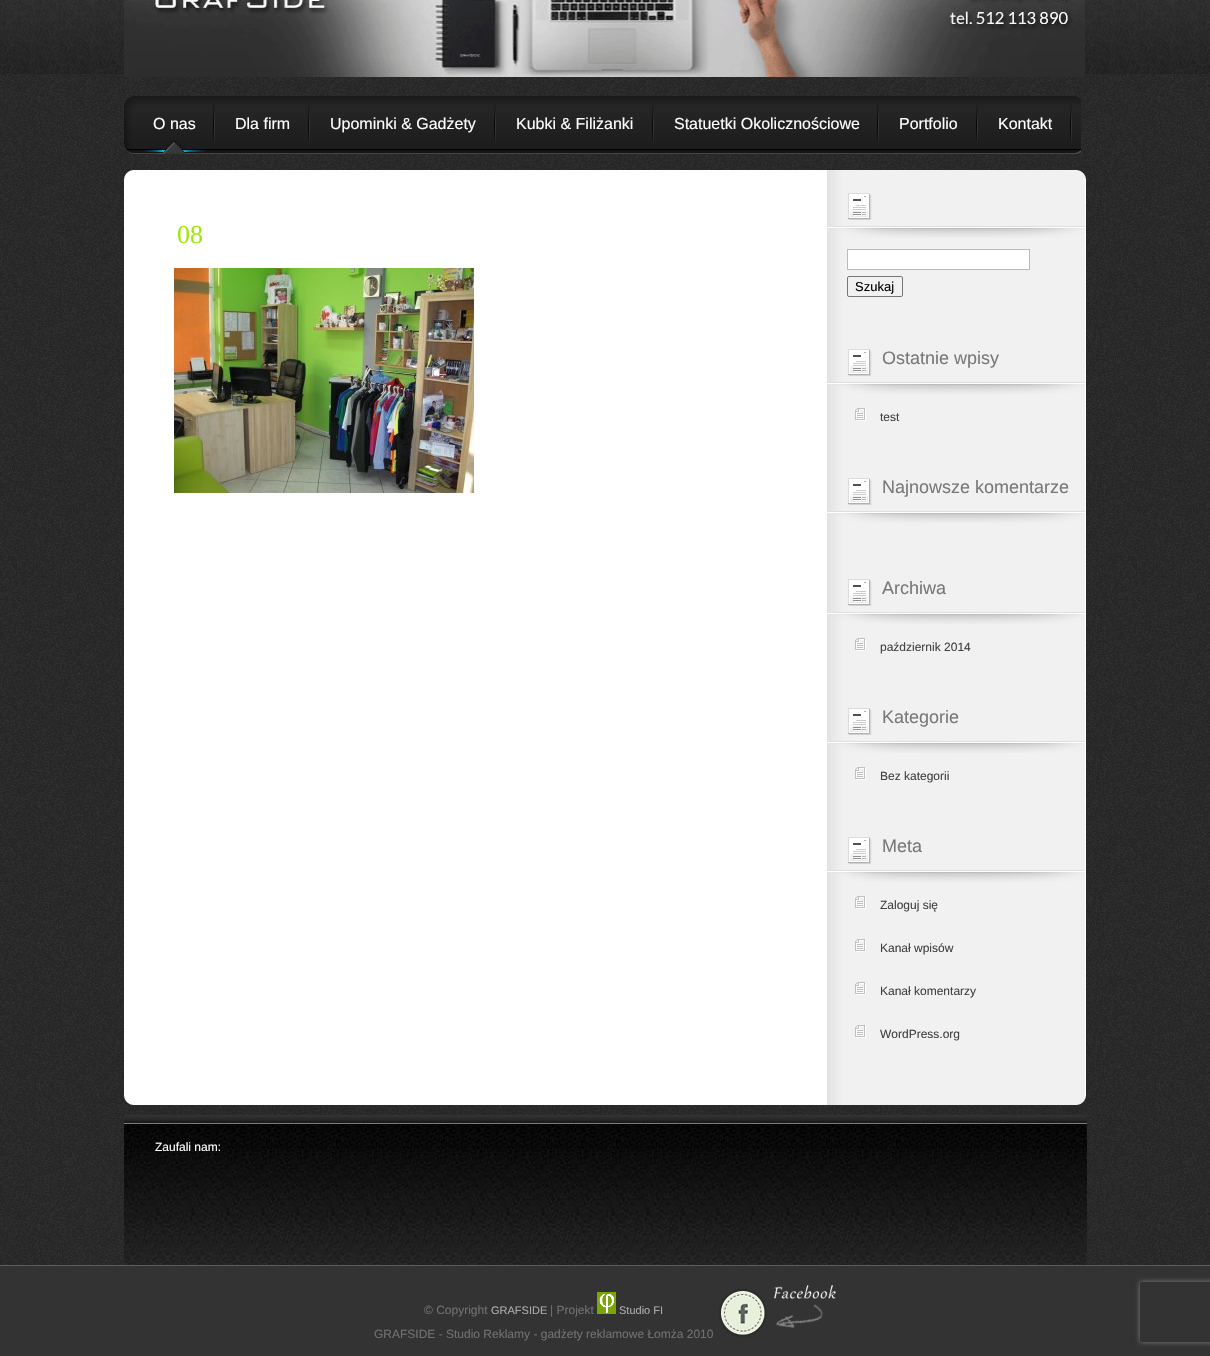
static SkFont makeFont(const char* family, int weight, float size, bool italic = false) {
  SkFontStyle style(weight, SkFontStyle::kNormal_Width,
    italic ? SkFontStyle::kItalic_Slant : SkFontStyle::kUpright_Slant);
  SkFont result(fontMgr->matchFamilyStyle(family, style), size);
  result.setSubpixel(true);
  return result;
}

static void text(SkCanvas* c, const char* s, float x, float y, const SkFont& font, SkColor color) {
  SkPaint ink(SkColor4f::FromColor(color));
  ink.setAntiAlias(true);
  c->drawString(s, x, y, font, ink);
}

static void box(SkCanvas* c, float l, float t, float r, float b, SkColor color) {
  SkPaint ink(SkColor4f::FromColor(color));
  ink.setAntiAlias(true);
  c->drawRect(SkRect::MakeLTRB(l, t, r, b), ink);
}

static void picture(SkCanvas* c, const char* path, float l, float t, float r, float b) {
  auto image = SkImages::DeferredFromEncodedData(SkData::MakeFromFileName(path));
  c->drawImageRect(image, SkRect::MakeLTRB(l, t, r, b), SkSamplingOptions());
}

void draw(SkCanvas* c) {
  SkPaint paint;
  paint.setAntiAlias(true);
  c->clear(0xffffffff);
  picture(c, "img_01.png", 0, 74, 1210, 1265);
  picture(c, "img_02.png", 0, 0, 1210, 74);
  picture(c, "img_03.png", 124, 0, 1085, 77);
  picture(c, "img_04.png", 124, 96, 1081, 154);
  picture(c, "img_05.png", 213, 105, 215, 144);
  SkFont face1 = makeFont("Liberation Sans", 400, 16);
  text(c, "O nas", 153, 129, face1, 0xffffffff);
  picture(c, "img_05.png", 308, 105, 310, 144);
  text(c, "Dla firm", 235, 129, face1, 0xffffffff);
  picture(c, "img_05.png", 494, 105, 496, 144);
  text(c, "Upominki & Gadżety", 330, 129, face1, 0xffffffff);
  picture(c, "img_05.png", 652, 105, 654, 144);
  text(c, "Kubki & Filiżanki", 516, 129, face1, 0xffffffff);
  picture(c, "img_05.png", 877, 105, 879, 144);
  text(c, "Statuetki Okolicznościowe", 674, 129, face1, 0xffffffff);
  picture(c, "img_05.png", 976, 105, 978, 144);
  text(c, "Portfolio", 899, 129, face1, 0xffffffff);
  picture(c, "img_05.png", 1070, 105, 1072, 144);
  text(c, "Kontakt", 998, 129, face1, 0xffffffff);
  picture(c, "img_06.png", 143, 140, 206, 154);
  picture(c, "img_07.png", 124, 170, 1086, 180);
  picture(c, "img_08.png", 124, 180, 1086, 1095);
  SkFont face2 = makeFont("Liberation Serif", 400, 26);
  text(c, "08", 177, 243, face2, 0xffa3e60d);
  picture(c, "img_09.png", 174, 268, 474, 493);
  picture(c, "img_10.png", 848, 193, 872, 220);
  picture(c, "img_11.png", 827, 226, 1085, 238);
  paint.setColor(0xffffffff);
  c->drawRect(SkRect::MakeLTRB(847.5f, 249.5f, 1029.5f, 269.5f), paint);
  paint.setStyle(SkPaint::kStroke_Style);
  paint.setStrokeWidth(1);
  paint.setColor(0xffbbbbbb);
  c->drawRect(SkRect::MakeLTRB(847.5f, 249.5f, 1029.5f, 269.5f), paint);
  paint.setColor(0xff767676);
  c->drawRoundRect(SkRect::MakeLTRB(847.5f, 276.5f, 902.5f, 296.5f), 1.5f, 1.5f, paint);
  SkFont face3 = makeFont("Liberation Sans", 400, 13);
  text(c, "Szukaj", 855, 291, face3, 0xff000000);
  picture(c, "img_10.png", 848, 349, 872, 376);
  SkFont face4 = makeFont("Liberation Sans", 400, 18);
  text(c, "Ostatnie wpisy", 882, 364, face4, 0xff7a7979);
  picture(c, "img_11.png", 827, 382, 1085, 394);
  picture(c, "img_12.png", 855, 408, 866, 421);
  SkFont face5 = makeFont("Liberation Sans", 400, 12);
  text(c, "test", 880, 421, face5, 0xff404040);
  picture(c, "img_10.png", 848, 478, 872, 505);
  text(c, "Najnowsze komentarze", 882, 493, face4, 0xff7a7979);
  picture(c, "img_11.png", 827, 511, 1085, 523);
  picture(c, "img_10.png", 848, 579, 872, 606);
  text(c, "Archiwa", 882, 594, face4, 0xff7a7979);
  picture(c, "img_11.png", 827, 612, 1085, 624);
  picture(c, "img_12.png", 855, 638, 866, 651);
  text(c, "październik 2014", 880, 651, face5, 0xff404040);
  picture(c, "img_10.png", 848, 708, 872, 735);
  text(c, "Kategorie", 882, 723, face4, 0xff7a7979);
  picture(c, "img_11.png", 827, 741, 1085, 753);
  picture(c, "img_12.png", 855, 767, 866, 780);
  text(c, "Bez kategorii", 880, 780, face5, 0xff404040);
  picture(c, "img_10.png", 848, 837, 872, 864);
  text(c, "Meta", 882, 852, face4, 0xff7a7979);
  picture(c, "img_11.png", 827, 870, 1085, 882);
  picture(c, "img_12.png", 855, 896, 866, 909);
  text(c, "Zaloguj się", 880, 909, face5, 0xff404040);
  picture(c, "img_12.png", 855, 939, 866, 952);
  text(c, "Kanał wpisów", 880, 952, face5, 0xff404040);
  picture(c, "img_12.png", 855, 982, 866, 995);
  text(c, "Kanał komentarzy", 880, 995, face5, 0xff404040);
  picture(c, "img_12.png", 855, 1025, 866, 1038);
  text(c, "WordPress.org", 880, 1038, face5, 0xff404040);
  picture(c, "img_13.png", 124, 1095, 1086, 1105);
  picture(c, "img_14.png", 124, 1115, 1087, 1265);
  text(c, "Zaufali nam:", 155, 1151, face5, 0xffffffff);
  box(c, 0, 1266, 1210, 1356, 0xff333333);
  box(c, 0, 1265, 1210, 1266, 0xff5d5d5d);
  text(c, "© Copyright", 424, 1314, face5, 0xff727171);
  SkFont face6 = makeFont("Liberation Sans", 400, 11);
  text(c, "GRAFSIDE", 491, 1314, face6, 0xffacacac);
  text(c, "| Projekt", 550, 1314, face5, 0xff727171);
  picture(c, "img_15.png", 597, 1292, 616, 1314);
  text(c, "Studio FI", 619, 1314, face6, 0xffacacac);
  text(c, "GRAFSIDE - Studio Reklamy - gadżety reklamowe Łomża 2010", 374, 1338, face5, 0xff727171);
  picture(c, "img_16.png", 719, 1285, 836, 1337);
  c->save();
  c->clipPath(SkPathBuilder(SkPathFillType::kEvenOdd).moveTo(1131, 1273).lineTo(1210, 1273).lineTo(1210, 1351).lineTo(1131, 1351).close().moveTo(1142, 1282).lineTo(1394, 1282).cubicTo(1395, 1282, 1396, 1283, 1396, 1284).lineTo(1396, 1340).cubicTo(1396, 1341, 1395, 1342, 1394, 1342).lineTo(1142, 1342).cubicTo(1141, 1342, 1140, 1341, 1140, 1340).lineTo(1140, 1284).cubicTo(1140, 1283, 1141, 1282, 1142, 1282).close().detach(), true);
  paint.setStyle(SkPaint::kFill_Style);
  paint.setColor(0xff808080);
  paint.setMaskFilter(SkMaskFilter::MakeBlur(kNormal_SkBlurStyle, 2.5f));
  c->drawRoundRect(SkRect::MakeLTRB(1140, 1282, 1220, 1342), 2, 2, paint);
  paint.setMaskFilter(nullptr);
  c->restore();
}
